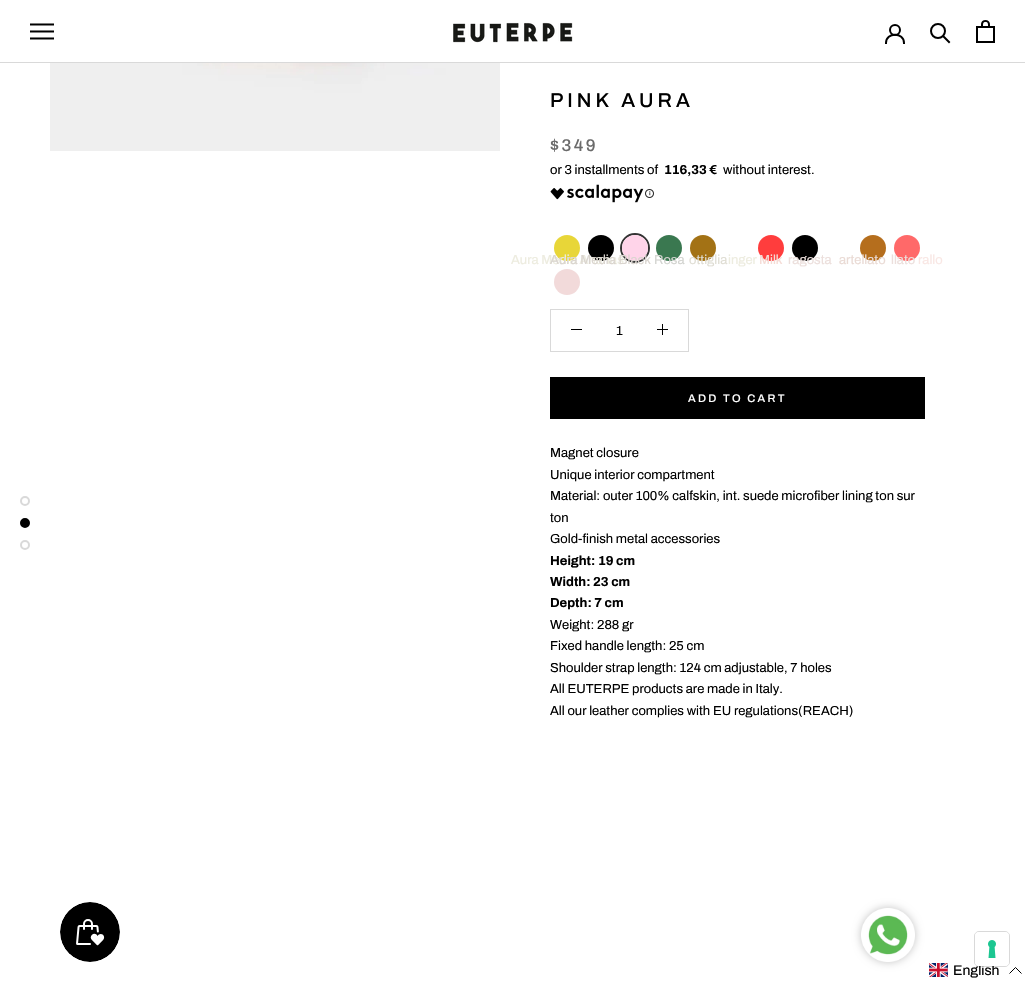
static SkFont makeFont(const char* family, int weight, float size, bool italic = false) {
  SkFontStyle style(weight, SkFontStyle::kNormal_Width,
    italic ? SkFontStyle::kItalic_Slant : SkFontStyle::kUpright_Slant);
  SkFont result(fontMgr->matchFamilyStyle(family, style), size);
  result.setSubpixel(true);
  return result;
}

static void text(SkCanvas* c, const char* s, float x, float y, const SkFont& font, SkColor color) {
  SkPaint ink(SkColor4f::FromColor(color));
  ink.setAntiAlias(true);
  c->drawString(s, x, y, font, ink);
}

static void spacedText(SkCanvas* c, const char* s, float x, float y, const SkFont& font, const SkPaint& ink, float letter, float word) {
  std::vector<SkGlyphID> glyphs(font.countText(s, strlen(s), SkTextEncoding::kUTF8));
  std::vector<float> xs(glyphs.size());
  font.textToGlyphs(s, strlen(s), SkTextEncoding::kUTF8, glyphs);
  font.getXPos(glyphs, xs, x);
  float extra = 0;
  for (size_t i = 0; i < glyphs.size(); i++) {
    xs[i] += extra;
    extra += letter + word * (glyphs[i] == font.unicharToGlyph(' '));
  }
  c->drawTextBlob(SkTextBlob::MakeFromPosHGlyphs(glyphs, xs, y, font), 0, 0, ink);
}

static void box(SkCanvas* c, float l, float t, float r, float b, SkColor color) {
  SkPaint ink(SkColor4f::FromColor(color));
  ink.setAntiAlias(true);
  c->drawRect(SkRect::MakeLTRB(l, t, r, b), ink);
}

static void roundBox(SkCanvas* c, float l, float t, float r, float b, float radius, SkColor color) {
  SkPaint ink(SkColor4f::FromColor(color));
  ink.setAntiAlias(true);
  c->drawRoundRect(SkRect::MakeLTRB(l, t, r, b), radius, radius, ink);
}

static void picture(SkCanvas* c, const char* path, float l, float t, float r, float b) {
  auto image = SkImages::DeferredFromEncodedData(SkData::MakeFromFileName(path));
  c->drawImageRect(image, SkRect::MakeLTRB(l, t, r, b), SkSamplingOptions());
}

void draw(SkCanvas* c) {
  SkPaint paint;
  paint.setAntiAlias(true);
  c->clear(0xffffffff);
  box(c, 0, 62, 1025, 63, 0xffd9d9d9);
  picture(c, "img_01.png", 30, 23, 54, 40);
  picture(c, "img_02.png", 453, 22, 573, 43);
  paint.setStyle(SkPaint::kStroke_Style);
  paint.setStrokeWidth(2);
  paint.setStrokeCap(SkPaint::kSquare_Cap);
  paint.setColor(0xff000000);
  c->drawPath(SkPathBuilder().moveTo(886, 43).cubicTo(886, 32, 904, 32, 904, 43).detach(), paint);
  paint.setStrokeCap(SkPaint::kButt_Cap);
  c->drawCircle(895, 30, 5, paint);
  paint.setStrokeCap(SkPaint::kSquare_Cap);
  c->drawPath(SkPathBuilder().moveTo(949, 42).lineTo(943.5f, 36.5f).detach(), paint);
  paint.setStrokeCap(SkPaint::kButt_Cap);
  c->drawCircle(938, 31, 7, paint);
  picture(c, "img_03.png", 976, 20, 995, 43);
  picture(c, "img_04.png", 50, 63, 500, 151);
  paint.setColor(0xffd9d9d9);
  c->drawCircle(25, 501, 4, paint);
  paint.setStyle(SkPaint::kFill_Style);
  paint.setColor(0xff000000);
  c->drawCircle(25, 523, 4, paint);
  paint.setStyle(SkPaint::kStroke_Style);
  c->drawCircle(25, 523, 4, paint);
  paint.setColor(0xffd9d9d9);
  c->drawCircle(25, 545, 4, paint);
  SkFont face1 = makeFont("Archivo", 500, 20);
  paint.setStyle(SkPaint::kFill_Style);
  paint.setColor(0xff000000);
  spacedText(c, "PINK AURA", 550, 107, face1, paint, 4, 0);
  SkFont face2 = makeFont("Archivo", 500, 17);
  paint.setColor(0xff6a6a6a);
  spacedText(c, "$349", 550, 151, face2, paint, 2.5f, 0);
  SkFont face3 = makeFont("Archivo", 400, 13);
  text(c, "or 3 installments of", 550, 174, face3, 0xff000000);
  SkFont face4 = makeFont("Archivo", 700, 13);
  text(c, "116,33 €", 664, 174, face4, 0xff000000);
  text(c, "without interest.", 723, 174, face3, 0xff000000);
  picture(c, "img_05.png", 550, 184, 644, 203);
  picture(c, "img_06.png", 645, 189, 654, 198);
  paint.setColor(0xffe8d638);
  c->drawCircle(567, 248, 13, paint);
  paint.setColor(0xff000000);
  c->drawCircle(601, 248, 13, paint);
  paint.setStyle(SkPaint::kStroke_Style);
  paint.setColor(0xff333333);
  c->drawCircle(635, 248, 14, paint);
  paint.setStyle(SkPaint::kFill_Style);
  paint.setColor(0xffffd4e9);
  c->drawCircle(635, 248, 13, paint);
  text(c, "Aura Media Ananas", 511, 264, face3, 0xffedecdf);
  paint.setColor(0xffb56e1d);
  c->drawCircle(873, 248, 13, paint);
  text(c, "Aura Media Black", 550, 264, face3, 0xffdad5cf);
  paint.setColor(0xff3a7850);
  c->drawCircle(669, 248, 13, paint);
  text(c, "Rosa", 654, 264, face3, 0xffd3d4d0);
  paint.setColor(0xffa37215);
  c->drawCircle(703, 248, 13, paint);
  text(c, "ottiglia", 689, 264, face3, 0xffdfddd3);
  text(c, "inger", 728, 264, face3, 0xffedecdf);
  paint.setColor(0xffff3d3d);
  c->drawCircle(771, 248, 13, paint);
  text(c, "Milk", 759, 264, face3, 0xfff5dbd5);
  paint.setColor(0xff000000);
  c->drawCircle(805, 248, 13, paint);
  text(c, "ragosta", 788, 264, face3, 0xffecdfdc);
  text(c, "artellato", 839, 264, face3, 0xffeadbd5);
  paint.setColor(0xffff6969);
  c->drawCircle(907, 248, 13, paint);
  text(c, "llato", 891, 264, face3, 0xffecdfdc);
  text(c, "rallo", 918, 264, face3, 0xfff9e7e4);
  paint.setColor(0xfff2dada);
  c->drawCircle(567, 282, 13, paint);
  paint.setStyle(SkPaint::kStroke_Style);
  paint.setStrokeWidth(1);
  paint.setColor(0xffd9d9d9);
  c->drawRect(SkRect::MakeLTRB(550.5f, 309.5f, 688.5f, 351.5f), paint);
  box(c, 571, 329, 582, 330, 0xff000000);
  text(c, "1", 616, 335, face3, 0xff000000);
  box(c, 662, 324, 663, 335, 0xff000000);
  box(c, 657, 329, 668, 330, 0xff000000);
  paint.setColor(0xff000000);
  c->drawRect(SkRect::MakeLTRB(550.5f, 377.5f, 924.5f, 418.5f), paint);
  box(c, 551, 378, 924, 418, 0xff000000);
  SkFont face5 = makeFont("Archivo", 500, 11);
  paint.setStyle(SkPaint::kFill_Style);
  paint.setColor(0xffffffff);
  spacedText(c, "ADD TO CART", 688, 402, face5, paint, 2.25f, 0);
  text(c, "Magnet closure", 550, 457, face3, 0xff000000);
  text(c, "Unique interior compartment", 550, 479, face3, 0xff000000);
  text(c, "Material: outer 100% calfskin, int. suede microfiber lining ton sur", 550, 500, face3, 0xff000000);
  text(c, "ton", 550, 522, face3, 0xff000000);
  text(c, "Gold-finish metal accessories", 550, 543, face3, 0xff000000);
  text(c, "Height: 19 cm", 550, 565, face4, 0xff000000);
  text(c, "Width: 23 cm", 550, 586, face4, 0xff000000);
  text(c, "Depth: 7 cm", 550, 607, face4, 0xff000000);
  text(c, "Weight: 288 gr", 550, 629, face3, 0xff000000);
  text(c, "Fixed handle length: 25 cm", 550, 650, face3, 0xff000000);
  text(c, "Shoulder strap length: 124 cm adjustable, 7 holes", 550, 672, face3, 0xff000000);
  text(c, "All EUTERPE products are made in Italy.", 550, 693, face3, 0xff000000);
  text(c, "All our leather complies with EU regulations(REACH)", 550, 715, face3, 0xff000000);
  picture(c, "img_07.png", 60, 902, 120, 962);
  paint.setColor(0xffc2c2c2);
  paint.setMaskFilter(SkMaskFilter::MakeBlur(kNormal_SkBlurStyle, 4));
  c->drawRoundRect(SkRect::MakeLTRB(861, 908, 915, 962), 27, 27, paint);
  paint.setMaskFilter(nullptr);
  picture(c, "img_08.png", 861, 908, 915, 962);
  SkFont face6 = makeFont("Archivo", 400, 14);
  text(c, "English", 953, 975, face6, 0xff000000);
  paint.setStyle(SkPaint::kStroke_Style);
  paint.setColor(0xff000000);
  c->drawPath(SkPathBuilder().moveTo(1021.5f, 973.5f).lineTo(1015.5f, 967.5f).lineTo(1009.5f, 973.5f).detach(), paint);
  paint.setColor(0x26000000);
  c->drawRoundRect(SkRect::MakeLTRB(974.5f, 931.5f, 1009.5f, 966.5f), 4.5f, 4.5f, paint);
  roundBox(c, 975, 932, 1009, 966, 4, 0xffffffff);
  picture(c, "img_09.png", 988, 940, 996, 958);
  picture(c, "img_10.png", 929, 963, 948, 977);
}
